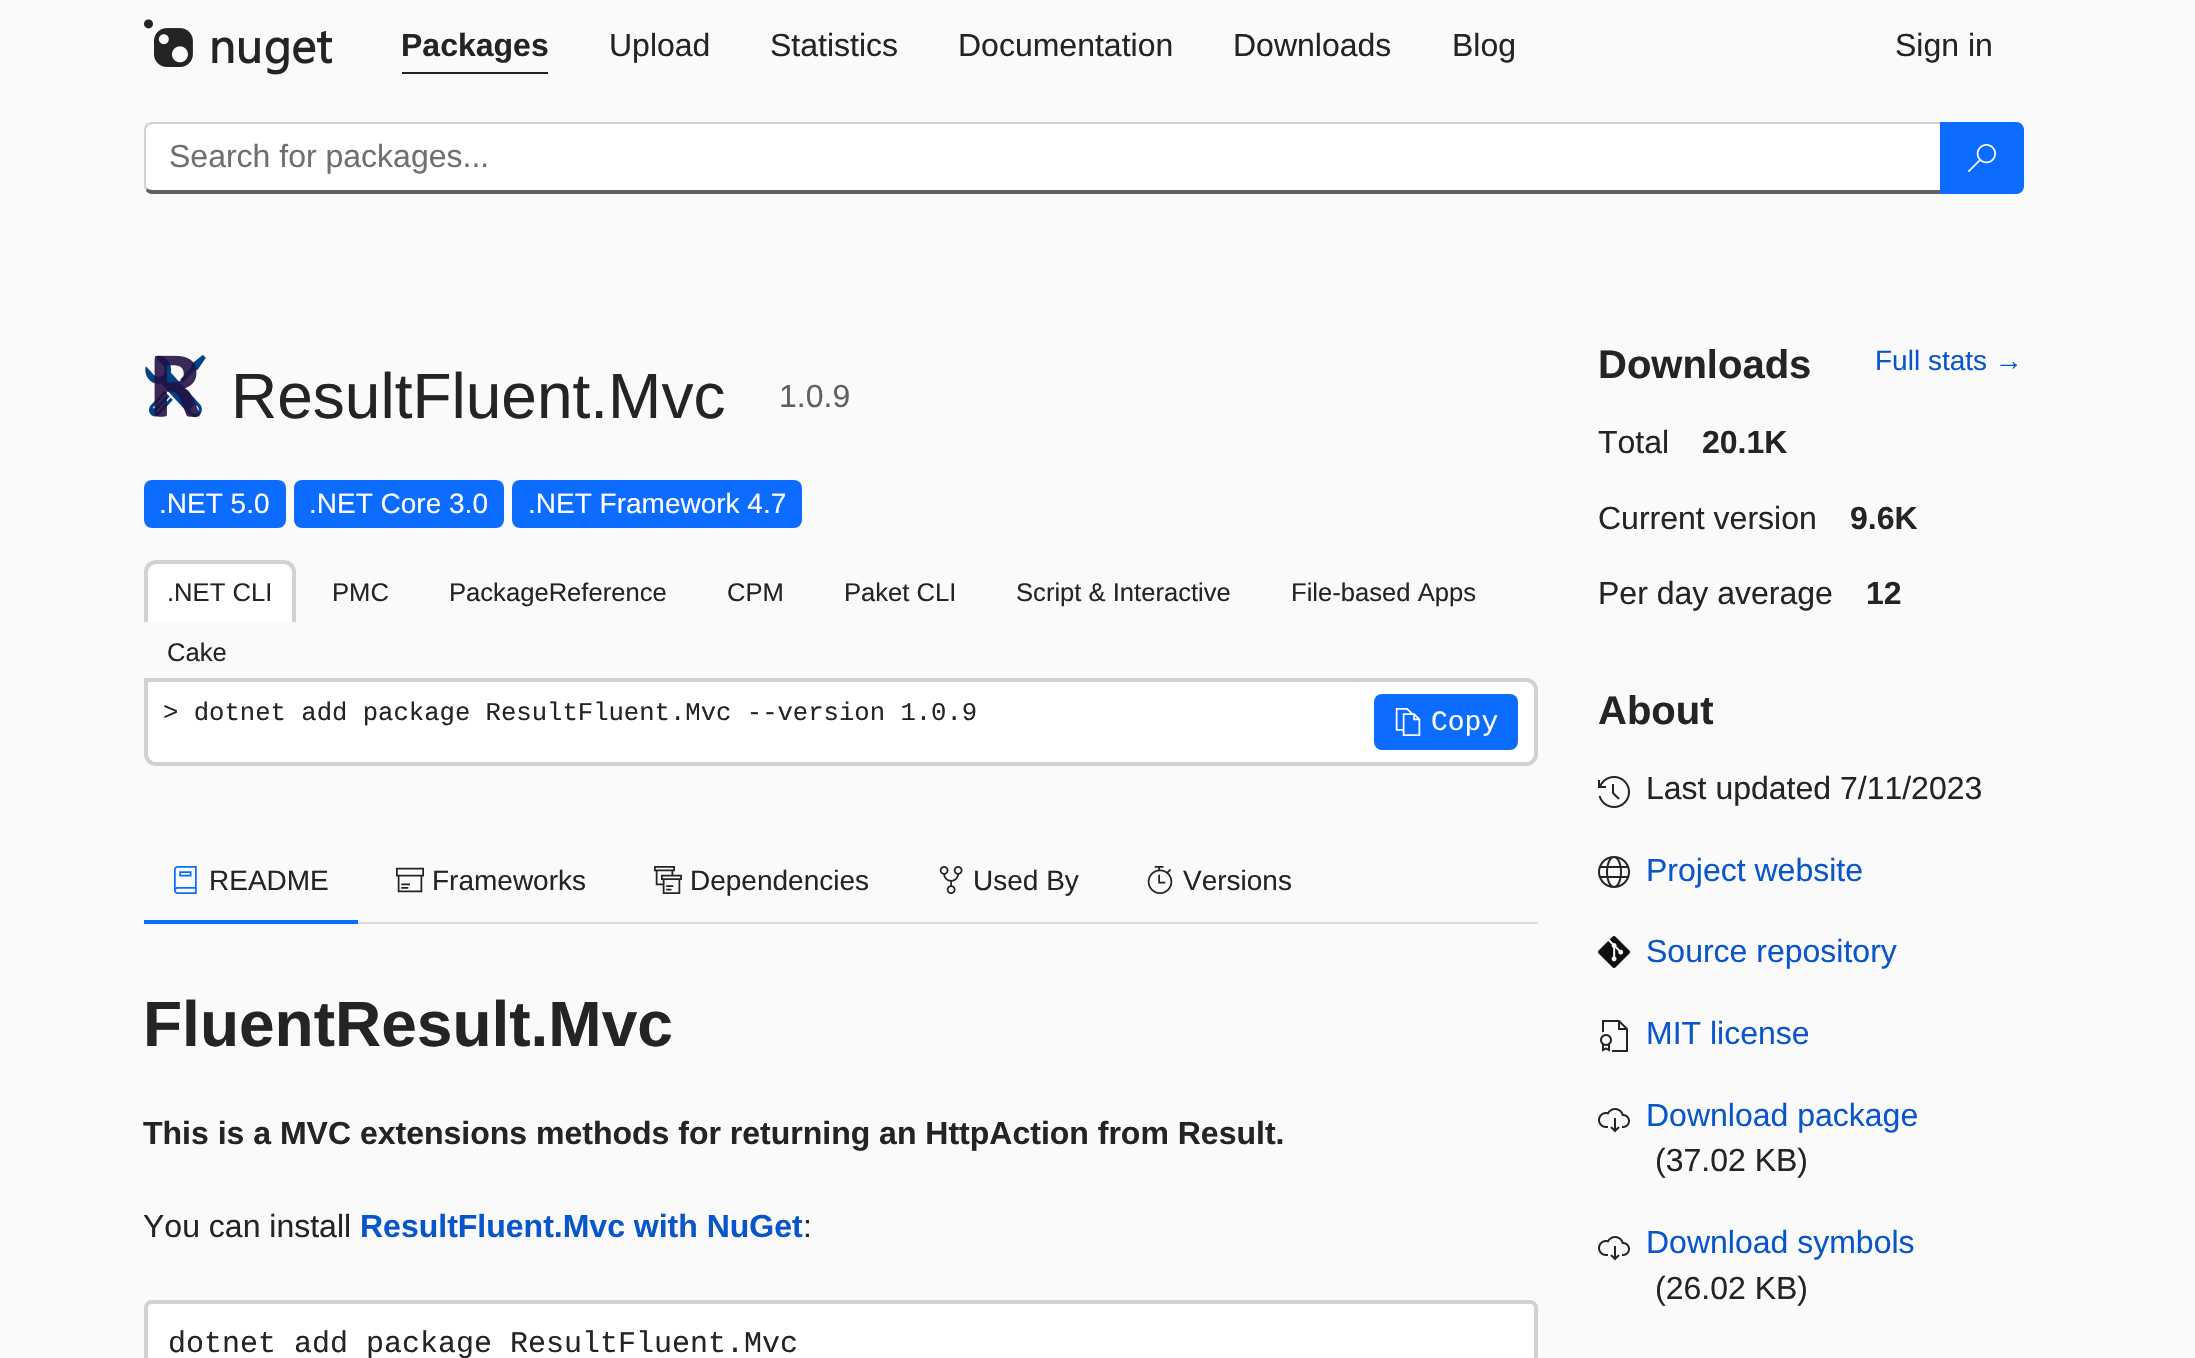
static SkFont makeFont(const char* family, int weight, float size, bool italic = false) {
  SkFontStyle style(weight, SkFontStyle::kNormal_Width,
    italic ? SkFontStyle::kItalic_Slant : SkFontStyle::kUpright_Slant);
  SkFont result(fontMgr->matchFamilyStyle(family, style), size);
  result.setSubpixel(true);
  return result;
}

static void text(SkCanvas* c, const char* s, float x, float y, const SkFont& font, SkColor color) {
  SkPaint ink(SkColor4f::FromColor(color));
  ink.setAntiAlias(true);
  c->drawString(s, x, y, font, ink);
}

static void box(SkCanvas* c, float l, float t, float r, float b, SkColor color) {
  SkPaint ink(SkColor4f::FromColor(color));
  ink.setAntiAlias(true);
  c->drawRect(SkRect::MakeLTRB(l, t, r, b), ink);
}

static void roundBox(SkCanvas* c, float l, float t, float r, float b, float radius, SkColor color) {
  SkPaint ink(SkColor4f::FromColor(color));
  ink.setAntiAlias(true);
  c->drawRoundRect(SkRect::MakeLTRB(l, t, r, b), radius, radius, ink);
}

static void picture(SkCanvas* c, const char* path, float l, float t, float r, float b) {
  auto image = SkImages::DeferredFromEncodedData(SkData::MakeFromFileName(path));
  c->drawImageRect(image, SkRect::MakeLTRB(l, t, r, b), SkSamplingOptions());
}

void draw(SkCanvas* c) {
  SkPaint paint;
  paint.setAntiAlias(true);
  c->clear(0xfffafafa);
  picture(c, "img_01.png", 144, 19, 332, 75);
  SkFont face1 = makeFont("Liberation Sans", 700, 32);
  text(c, "Packages", 401, 56, face1, 0xff242424);
  box(c, 402, 72, 548, 74, 0xff242424);
  SkFont face2 = makeFont("Liberation Sans", 400, 32);
  text(c, "Upload", 609, 56, face2, 0xff242424);
  text(c, "Statistics", 770, 56, face2, 0xff242424);
  text(c, "Documentation", 958, 56, face2, 0xff242424);
  text(c, "Downloads", 1233, 56, face2, 0xff242424);
  text(c, "Blog", 1452, 56, face2, 0xff242424);
  text(c, "Sign in", 1895, 56, face2, 0xff242424);
  paint.setColor(0xffffffff);
  c->drawPath(SkPathBuilder().moveTo(152, 124).lineTo(1940, 124).lineTo(1940, 190).lineTo(152, 190).cubicTo(149, 190, 146, 188, 146, 186).lineTo(146, 130).cubicTo(146, 127, 149, 124, 152, 124).close().detach(), paint);
  paint.setColor(0xffd1d1d1);
  c->drawPath(SkPathBuilder().moveTo(152, 122).cubicTo(150, 122, 148, 123, 146, 124).lineTo(148, 126).cubicTo(149, 125, 150, 124, 152, 124).lineTo(1940, 124).lineTo(1942, 122).close().detach(), paint);
  paint.setColor(0xff616161);
  c->drawPath(SkPathBuilder().moveTo(1942, 194).lineTo(1940, 190).lineTo(152, 190).cubicTo(150, 190, 148, 189, 147, 188).lineTo(146, 191).cubicTo(147, 193, 150, 194, 152, 194).close().detach(), paint);
  paint.setColor(0xffd1d1d1);
  c->drawPath(SkPathBuilder().moveTo(144, 130).lineTo(144, 186).cubicTo(144, 188, 145, 189, 146, 191).lineTo(147, 188).lineTo(146, 186).lineTo(146, 129).lineTo(148, 126).lineTo(146, 124).cubicTo(145, 126, 144, 128, 144, 130).close().detach(), paint);
  text(c, "Search for packages...", 169, 167, face2, 0xff707070);
  paint.setColor(0xff0b6cff);
  c->drawPath(SkPathBuilder().moveTo(1940, 122).lineTo(2016, 122).cubicTo(2020.5f, 122, 2024, 125.5f, 2024, 130).lineTo(2024, 186).cubicTo(2024, 190.5f, 2020.5f, 194, 2016, 194).lineTo(1940, 194).close().detach(), paint);
  picture(c, "img_02.png", 1968, 144, 1996, 172);
  picture(c, "img_03.png", 145, 355, 206, 418);
  SkFont face3 = makeFont("Liberation Sans", 400, 64);
  text(c, "ResultFluent.Mvc", 231, 418, face3, 0xff242424);
  text(c, "1.0.9", 779, 407, face2, 0xff616161);
  roundBox(c, 144, 480, 286, 528, 8, 0xff0b6cff);
  SkFont face4 = makeFont("Liberation Sans", 400, 28);
  text(c, ".NET 5.0", 159, 513, face4, 0xffffffff);
  roundBox(c, 294, 480, 504, 528, 8, 0xff0b6cff);
  text(c, ".NET Core 3.0", 309, 513, face4, 0xffffffff);
  roundBox(c, 512, 480, 802, 528, 8, 0xff0b6cff);
  text(c, ".NET Framework 4.7", 528, 513, face4, 0xffffffff);
  paint.setColor(0xffffffff);
  c->drawPath(SkPathBuilder().moveTo(156, 560).lineTo(284, 560).cubicTo(290.5f, 560, 296, 565.5f, 296, 572).lineTo(296, 622).lineTo(144, 622).lineTo(144, 572).cubicTo(144, 565.5f, 149.5f, 560, 156, 560).close().detach(), paint);
  paint.setColor(0xffd1d1d1);
  c->drawPath(SkPathBuilder(SkPathFillType::kEvenOdd).moveTo(156, 560).lineTo(284, 560).cubicTo(291, 560, 296, 565, 296, 572).lineTo(296, 622).lineTo(144, 622).lineTo(144, 572).cubicTo(144, 565, 149, 560, 156, 560).close().moveTo(156, 564).lineTo(284, 564).cubicTo(288, 564, 292, 568, 292, 572).lineTo(292, 622).lineTo(148, 622).lineTo(148, 572).cubicTo(148, 568, 152, 564, 156, 564).close().detach(), paint);
  SkFont face5 = makeFont("Liberation Sans", 400, 25.6f);
  text(c, ".NET CLI", 167, 601, face5, 0xff242424);
  text(c, "PMC", 332, 601, face5, 0xff242424);
  text(c, "PackageReference", 449, 601, face5, 0xff242424);
  text(c, "CPM", 727, 601, face5, 0xff242424);
  text(c, "Paket CLI", 844, 601, face5, 0xff242424);
  text(c, "Script & Interactive", 1016, 601, face5, 0xff242424);
  text(c, "File-based Apps", 1291, 601, face5, 0xff242424);
  text(c, "Cake", 167, 661, face5, 0xff242424);
  paint.setColor(0xffffffff);
  c->drawPath(SkPathBuilder().moveTo(146, 680).lineTo(1526, 680).cubicTo(1531.5f, 680, 1536, 684.5f, 1536, 690).lineTo(1536, 754).cubicTo(1536, 759.5f, 1531.5f, 764, 1526, 764).lineTo(156, 764).cubicTo(150.5f, 764, 146, 759.5f, 146, 754).close().detach(), paint);
  paint.setStyle(SkPaint::kStroke_Style);
  paint.setStrokeWidth(4);
  paint.setColor(0xffd1d1d1);
  c->drawPath(SkPathBuilder().moveTo(146, 680).lineTo(1526, 680).cubicTo(1531.5f, 680, 1536, 684.5f, 1536, 690).lineTo(1536, 754).cubicTo(1536, 759.5f, 1531.5f, 764, 1526, 764).lineTo(156, 764).cubicTo(150.5f, 764, 146, 759.5f, 146, 754).close().detach(), paint);
  SkFont face6 = makeFont("Liberation Mono", 400, 25.6f);
  text(c, "> dotnet add package ResultFluent.Mvc --version 1.0.9", 163, 720, face6, 0xff242424);
  roundBox(c, 1374, 694, 1518, 750, 8, 0xff0b6cff);
  picture(c, "img_04.png", 1395, 708, 1421, 736);
  SkFont face7 = makeFont("Liberation Mono", 400, 28);
  text(c, "Copy", 1431, 730, face7, 0xffffffff);
  box(c, 358, 922, 1538, 924, 0xffdddddd);
  box(c, 144, 920, 358, 924, 0xff0b6cff);
  picture(c, "img_05.png", 174, 866, 197, 894);
  text(c, "README", 209, 890, face4, 0xff242424);
  picture(c, "img_06.png", 396, 867, 424, 893);
  text(c, "Frameworks", 432, 890, face4, 0xff242424);
  picture(c, "img_07.png", 654, 866, 682, 894);
  text(c, "Dependencies", 690, 890, face4, 0xff242424);
  picture(c, "img_08.png", 939, 866, 963, 894);
  text(c, "Used By", 973, 890, face4, 0xff242424);
  picture(c, "img_09.png", 1147, 866, 1173, 894);
  text(c, "Versions", 1183, 890, face4, 0xff242424);
  SkFont face8 = makeFont("Liberation Sans", 700, 64);
  text(c, "FluentResult.Mvc", 143, 1046, face8, 0xff242424);
  text(c, "This is a MVC extensions methods for returning an HttpAction from Result.", 143, 1144, face1, 0xff242424);
  text(c, "You can install", 143, 1237, face2, 0xff242424);
  text(c, "ResultFluent.Mvc with NuGet", 360, 1237, face1, 0xff0956cc);
  text(c, ":", 803, 1237, face2, 0xff242424);
  paint.setStyle(SkPaint::kFill_Style);
  paint.setColor(0xffffffff);
  c->drawRoundRect(SkRect::MakeLTRB(146, 1302, 1536, 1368), 6, 6, paint);
  paint.setStyle(SkPaint::kStroke_Style);
  paint.setColor(0xffd1d1d1);
  c->drawRoundRect(SkRect::MakeLTRB(146, 1302, 1536, 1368), 6, 6, paint);
  SkFont face9 = makeFont("Liberation Mono", 400, 30);
  text(c, "dotnet add package ResultFluent.Mvc", 168, 1352, face9, 0xff242424);
  SkFont face10 = makeFont("Liberation Sans", 700, 40);
  text(c, "Downloads", 1598, 378, face10, 0xff242424);
  text(c, "Full stats →", 1875, 370, face4, 0xff0956cc);
  text(c, "Total", 1598, 453, face2, 0xff242424);
  text(c, "20.1K", 1702, 453, face1, 0xff242424);
  text(c, "Current version", 1598, 529, face2, 0xff242424);
  text(c, "9.6K", 1850, 529, face1, 0xff242424);
  text(c, "Per day average", 1598, 604, face2, 0xff242424);
  text(c, "12", 1866, 604, face1, 0xff242424);
  text(c, "About", 1598, 724, face10, 0xff242424);
  picture(c, "img_10.png", 1598, 776, 1630, 808);
  text(c, "Last updated 7/11/2023", 1646, 799, face2, 0xff242424);
  picture(c, "img_11.png", 1598, 856, 1630, 888);
  text(c, "Project website", 1646, 881, face2, 0xff0956cc);
  picture(c, "img_12.png", 1598, 936, 1630, 968);
  text(c, "Source repository", 1646, 962, face2, 0xff0956cc);
  picture(c, "img_13.png", 1600, 1020, 1628, 1052);
  text(c, "MIT license", 1646, 1044, face2, 0xff0956cc);
  picture(c, "img_14.png", 1598, 1108, 1630, 1133);
  text(c, "Download package", 1646, 1126, face2, 0xff0956cc);
  text(c, "(37.02 KB)", 1655, 1171, face2, 0xff242424);
  picture(c, "img_14.png", 1598, 1236, 1630, 1261);
  text(c, "Download symbols", 1646, 1253, face2, 0xff0956cc);
  text(c, "(26.02 KB)", 1655, 1299, face2, 0xff242424);
}
